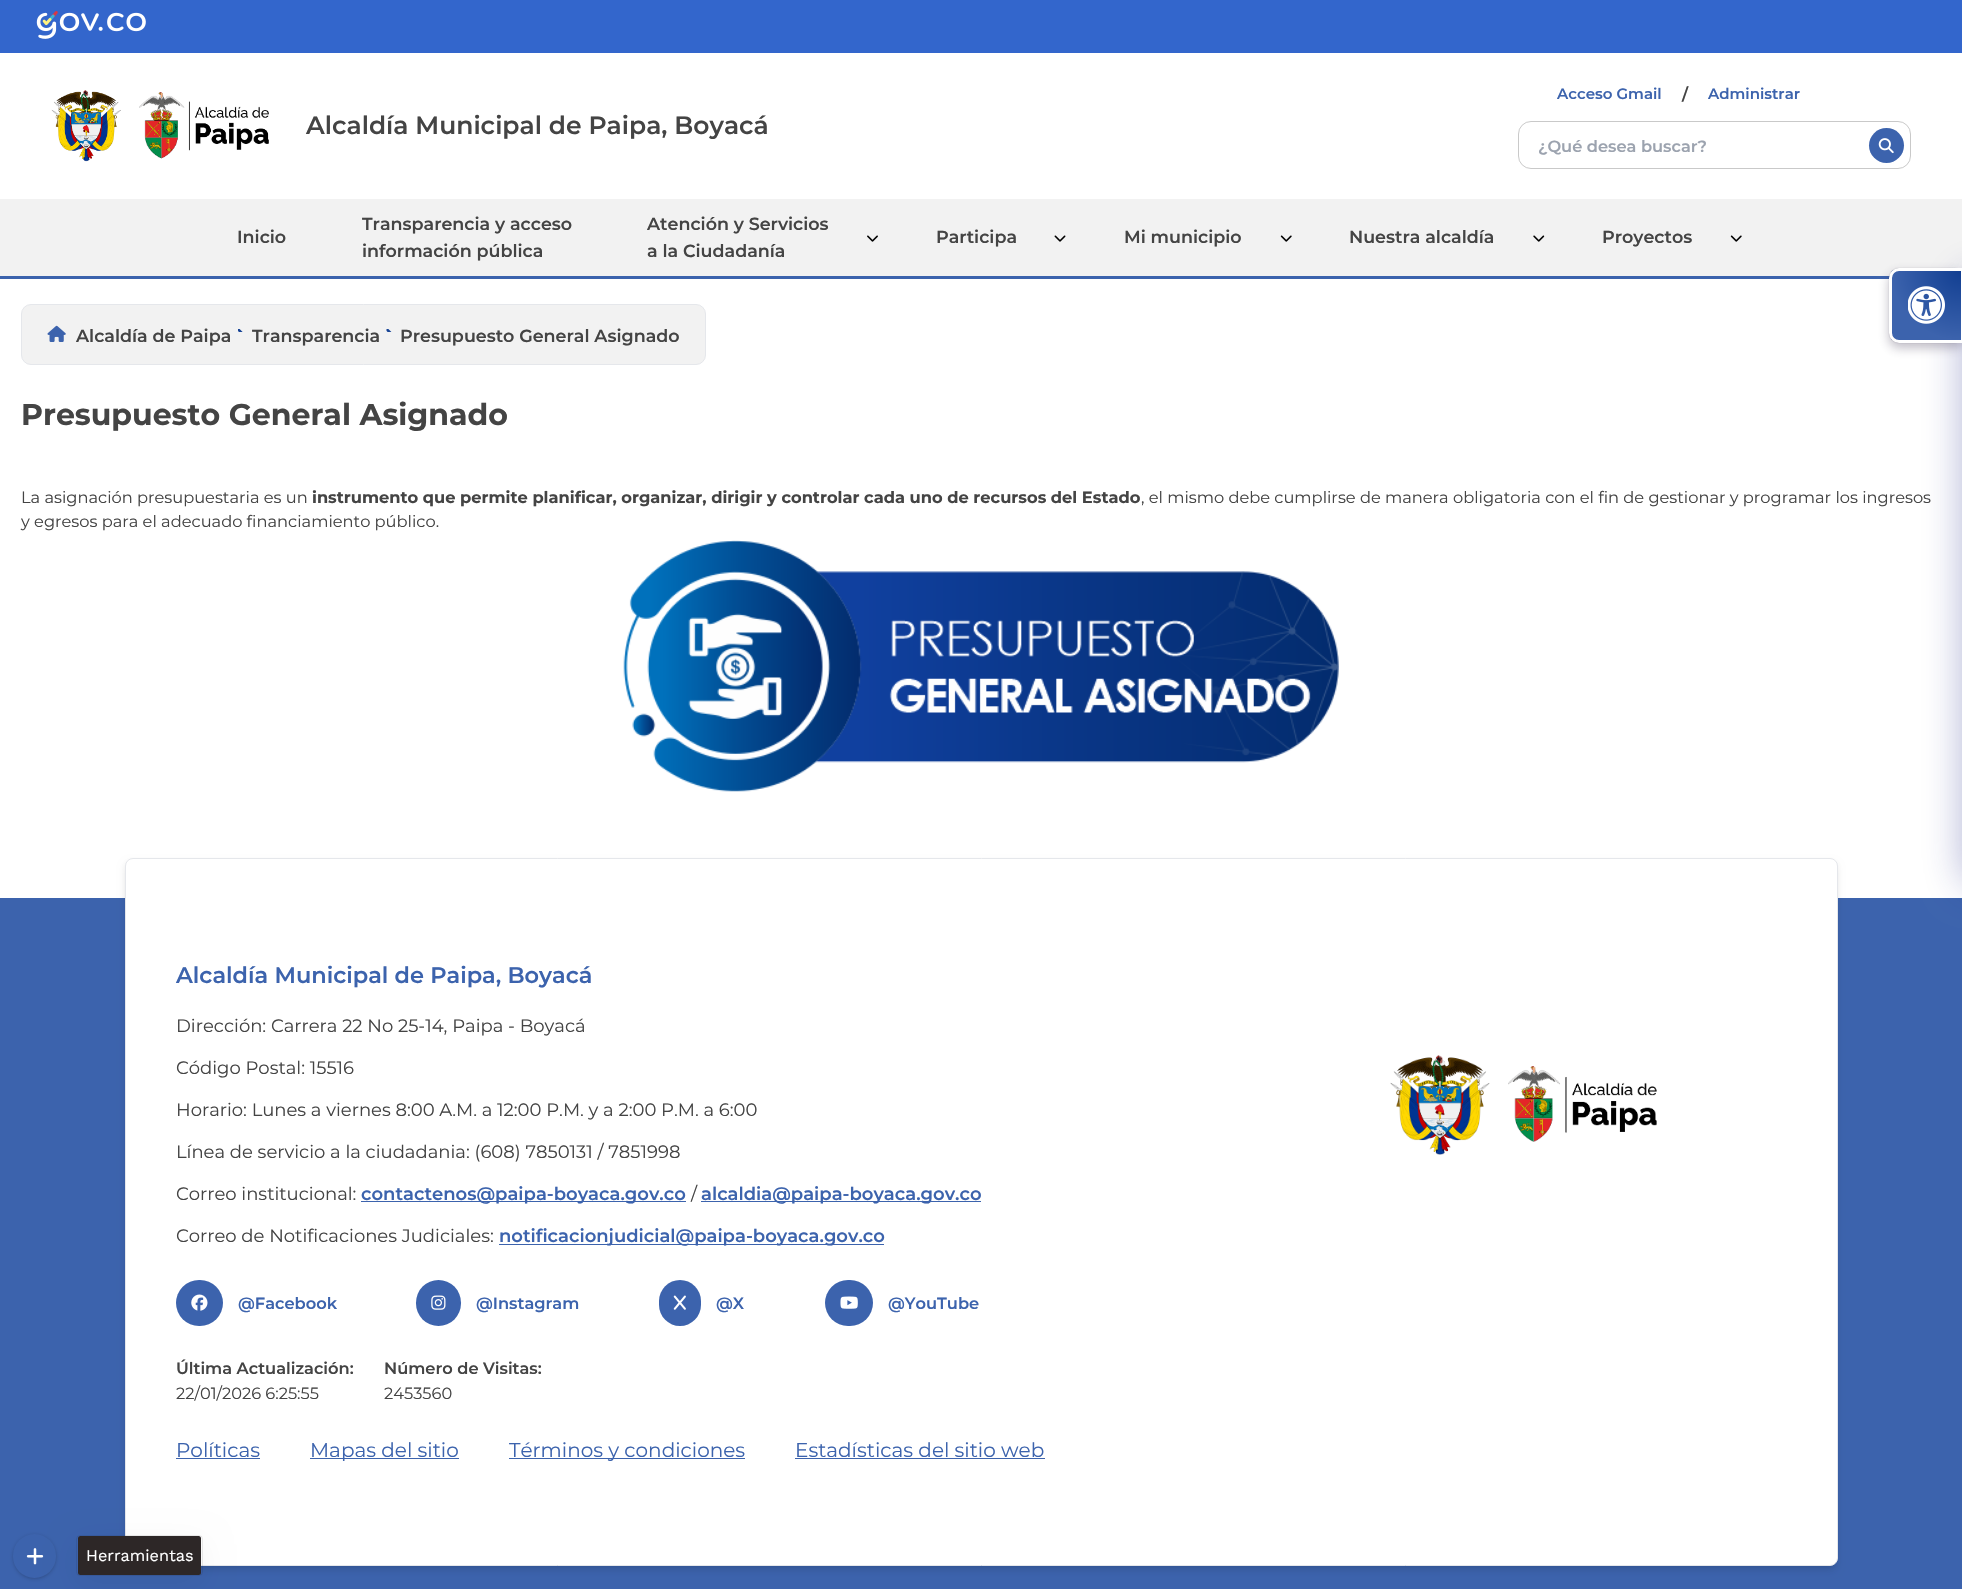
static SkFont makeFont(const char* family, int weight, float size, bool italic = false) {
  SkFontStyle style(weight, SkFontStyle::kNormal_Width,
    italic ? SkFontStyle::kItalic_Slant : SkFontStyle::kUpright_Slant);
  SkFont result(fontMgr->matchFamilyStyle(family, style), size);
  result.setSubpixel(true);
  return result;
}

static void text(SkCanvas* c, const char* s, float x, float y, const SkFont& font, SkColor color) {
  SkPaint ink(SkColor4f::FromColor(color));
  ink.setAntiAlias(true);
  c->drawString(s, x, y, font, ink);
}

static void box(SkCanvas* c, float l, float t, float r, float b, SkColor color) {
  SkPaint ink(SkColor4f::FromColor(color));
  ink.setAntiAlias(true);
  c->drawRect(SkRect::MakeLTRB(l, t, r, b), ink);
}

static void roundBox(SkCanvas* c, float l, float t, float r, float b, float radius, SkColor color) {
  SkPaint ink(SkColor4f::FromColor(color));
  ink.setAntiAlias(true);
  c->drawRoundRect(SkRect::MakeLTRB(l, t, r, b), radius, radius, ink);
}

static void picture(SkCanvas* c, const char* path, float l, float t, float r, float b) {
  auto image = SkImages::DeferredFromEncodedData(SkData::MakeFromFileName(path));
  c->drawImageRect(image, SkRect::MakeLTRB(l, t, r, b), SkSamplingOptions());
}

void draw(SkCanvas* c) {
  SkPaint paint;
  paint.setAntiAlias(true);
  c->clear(0xffffffff);
  box(c, 0, 0, 1962, 53, 0xff3366cc);
  picture(c, "img_01.png", 36, 11, 146, 39);
  picture(c, "img_02.png", 51, 90, 121, 162);
  picture(c, "img_03.png", 139, 92, 269, 159);
  SkFont face1 = makeFont("Montserrat", 600, 25);
  text(c, "Alcaldía Municipal de Paipa, Boyacá", 306, 134, face1, 0xff444444);
  SkFont face2 = makeFont("Montserrat", 600, 15);
  text(c, "Acceso Gmail", 1557, 99, face2, 0xff3c63ad);
  SkFont face3 = makeFont("Montserrat", 600, 16.25f);
  text(c, "/", 1682, 100, face3, 0xff444444);
  text(c, "Administrar", 1708, 99, face2, 0xff3c63ad);
  paint.setStyle(SkPaint::kStroke_Style);
  paint.setStrokeWidth(1);
  paint.setColor(0xffc9c9c9);
  c->drawRoundRect(SkRect::MakeLTRB(1518.5f, 121.5f, 1910.5f, 168.5f), 12.5f, 12.5f, paint);
  text(c, "¿Qué desea buscar?", 1538, 152, face3, 0xff9ca3af);
  paint.setStyle(SkPaint::kFill_Style);
  paint.setColor(0xff3c63ad);
  c->drawCircle(1886.5f, 145.5f, 17.5f, paint);
  picture(c, "img_04.png", 1878, 138, 1894, 154);
  box(c, 0, 199, 1962, 276, 0xfff2f2f2);
  box(c, 0, 276, 1890, 279, 0xff3c63ad);
  SkFont face4 = makeFont("Montserrat", 600, 17.5f);
  text(c, "Inicio", 237, 243, face4, 0xff444444);
  text(c, "Transparencia y acceso", 362, 230, face4, 0xff444444);
  text(c, "información pública", 362, 257, face4, 0xff444444);
  text(c, "Atención y Servicios", 647, 230, face4, 0xff444444);
  text(c, "a la Ciudadanía", 647, 257, face4, 0xff444444);
  picture(c, "img_05.png", 867, 235, 878, 242);
  text(c, "Participa", 936, 243, face4, 0xff444444);
  picture(c, "img_06.png", 1054, 235, 1066, 242);
  text(c, "Mi municipio", 1124, 243, face4, 0xff444444);
  picture(c, "img_07.png", 1280, 235, 1292, 242);
  text(c, "Nuestra alcaldía", 1349, 243, face4, 0xff444444);
  picture(c, "img_08.png", 1533, 235, 1545, 242);
  text(c, "Proyectos", 1602, 243, face4, 0xff444444);
  picture(c, "img_07.png", 1730, 235, 1742, 242);
  paint.setColor(0xfff2f2f2);
  c->drawRoundRect(SkRect::MakeLTRB(21.5f, 304.5f, 705.5f, 364.5f), 9.5f, 9.5f, paint);
  paint.setStyle(SkPaint::kStroke_Style);
  paint.setColor(0xffe5e7eb);
  c->drawRoundRect(SkRect::MakeLTRB(21.5f, 304.5f, 705.5f, 364.5f), 9.5f, 9.5f, paint);
  picture(c, "img_09.png", 47, 325, 66, 342);
  text(c, "Alcaldía de Paipa", 76, 342, face4, 0xff444444);
  picture(c, "img_10.png", 238, 329, 243, 332);
  text(c, "Transparencia", 252, 342, face4, 0xff444444);
  picture(c, "img_11.png", 386, 329, 392, 332);
  text(c, "Presupuesto General Asignado", 400, 342, face4, 0xff444444);
  SkFont face5 = makeFont("Montserrat", 700, 30);
  text(c, "Presupuesto General Asignado", 21, 425, face5, 0xff444444);
  SkFont face6 = makeFont("Montserrat", 400, 16.25f);
  text(c, "La asignación presupuestaria es un", 21, 503, face6, 0xff444444);
  SkFont face7 = makeFont("Montserrat", 700, 16.25f);
  text(c, "instrumento que permite planificar, organizar, dirigir y controlar cada uno de recursos del Estado", 312, 503, face7, 0xff444444);
  text(c, ", el mismo debe cumplirse de manera obligatoria con el fin de gestionar y programar los ingresos", 1141, 503, face6, 0xff444444);
  text(c, "y egresos para el adecuado financiamiento público.", 21, 527, face6, 0xff444444);
  picture(c, "img_12.png", 623, 540, 1339, 792);
  box(c, 0, 898, 1962, 1589, 0xff3c63ad);
  paint.setStyle(SkPaint::kFill_Style);
  paint.setColor(0x1a000000);
  paint.setMaskFilter(SkMaskFilter::MakeBlur(kNormal_SkBlurStyle, 2.5f));
  c->drawRoundRect(SkRect::MakeLTRB(128, 863, 1835, 1566), 5, 5, paint);
  paint.setMaskFilter(nullptr);
  paint.setMaskFilter(SkMaskFilter::MakeBlur(kNormal_SkBlurStyle, 4));
  c->drawRoundRect(SkRect::MakeLTRB(126, 864, 1836, 1570), 6, 6, paint);
  paint.setMaskFilter(nullptr);
  paint.setColor(0xffffffff);
  c->drawRoundRect(SkRect::MakeLTRB(125.5f, 858.5f, 1837.5f, 1565.5f), 7.5f, 7.5f, paint);
  paint.setStyle(SkPaint::kStroke_Style);
  paint.setColor(0xffe5e7eb);
  c->drawRoundRect(SkRect::MakeLTRB(125.5f, 858.5f, 1837.5f, 1565.5f), 7.5f, 7.5f, paint);
  SkFont face8 = makeFont("Montserrat", 600, 22.5f);
  text(c, "Alcaldía Municipal de Paipa, Boyacá", 176, 983, face8, 0xff3c63ad);
  SkFont face9 = makeFont("Montserrat", 400, 18);
  text(c, "Dirección: Carrera 22 No 25-14, Paipa - Boyacá", 176, 1032, face9, 0xff444444);
  text(c, "Código Postal: 15516", 176, 1074, face9, 0xff444444);
  text(c, "Horario: Lunes a viernes 8:00 A.M. a 12:00 P.M. y a 2:00 P.M. a 6:00", 176, 1116, face9, 0xff444444);
  text(c, "Línea de servicio a la ciudadania: (608) 7850131 / 7851998", 176, 1158, face9, 0xff444444);
  text(c, "Correo institucional:", 176, 1200, face9, 0xff444444);
  box(c, 361, 1201, 686, 1202, 0xff3c63ad);
  SkFont face10 = makeFont("Montserrat", 600, 18);
  text(c, "contactenos@paipa-boyaca.gov.co", 361, 1200, face10, 0xff3c63ad);
  text(c, "/", 691, 1200, face9, 0xff444444);
  box(c, 701, 1201, 981, 1202, 0xff3c63ad);
  text(c, "alcaldia@paipa-boyaca.gov.co", 701, 1200, face10, 0xff3c63ad);
  text(c, "Correo de Notificaciones Judiciales:", 176, 1242, face9, 0xff444444);
  box(c, 499, 1244, 884, 1245, 0xff3c63ad);
  text(c, "notificacionjudicial@paipa-boyaca.gov.co", 499, 1242, face10, 0xff3c63ad);
  picture(c, "img_13.png", 1390, 1055, 1490, 1155);
  picture(c, "img_14.png", 1508, 1066, 1657, 1142);
  roundBox(c, 176, 1280, 223, 1326, 23, 0xff3c63ad);
  picture(c, "img_15.png", 191, 1294, 208, 1311);
  text(c, "@Facebook", 238, 1309, face3, 0xff3c63ad);
  roundBox(c, 416, 1280, 461, 1326, 22.5f, 0xff3c63ad);
  picture(c, "img_16.png", 431, 1295, 446, 1310);
  text(c, "@Instagram", 476, 1309, face3, 0xff3c63ad);
  roundBox(c, 659, 1280, 701, 1326, 21, 0xff3c63ad);
  picture(c, "img_17.png", 673, 1295, 686, 1310);
  text(c, "@X", 716, 1309, face3, 0xff3c63ad);
  roundBox(c, 825, 1280, 873, 1326, 23, 0xff3c63ad);
  picture(c, "img_18.png", 840, 1296, 858, 1309);
  text(c, "@YouTube", 888, 1309, face3, 0xff3c63ad);
  text(c, "Última Actualización:", 176, 1374, face3, 0xff444444);
  text(c, "22/01/2026 6:25:55", 176, 1399, face6, 0xff444444);
  text(c, "Número de Visitas:", 384, 1374, face3, 0xff444444);
  text(c, "2453560", 384, 1399, face6, 0xff444444);
  SkFont face11 = makeFont("Montserrat", 400, 20);
  text(c, "Políticas", 176, 1457, face11, 0xff3c63ad);
  box(c, 176, 1458, 260, 1459, 0xff3c63ad);
  box(c, 310, 1458, 459, 1459, 0xff3c63ad);
  text(c, "Mapas del sitio", 310, 1457, face11, 0xff3c63ad);
  box(c, 509, 1458, 745, 1459, 0xff3c63ad);
  text(c, "Términos y condiciones", 509, 1457, face11, 0xff3c63ad);
  text(c, "Estadísticas del sitio web", 795, 1457, face11, 0xff3c63ad);
  box(c, 795, 1458, 1045, 1459, 0xff3c63ad);
  paint.setStyle(SkPaint::kFill_Style);
  paint.setColor(0x4d000000);
  paint.setMaskFilter(SkMaskFilter::MakeBlur(kNormal_SkBlurStyle, 2));
  c->drawRoundRect(SkRect::MakeLTRB(14, 1536, 55, 1578), 20.5f, 20.5f, paint);
  paint.setMaskFilter(nullptr);
  roundBox(c, 13, 1534, 56, 1578, 21.5f, 0xff3c63ad);
  picture(c, "img_19.png", 26, 1548, 44, 1565);
  paint.setStyle(SkPaint::kStroke_Style);
  paint.setColor(0x14000000);
  c->drawRoundRect(SkRect::MakeLTRB(76.5f, 1535.5f, 202.5f, 1575.5f), 3.5f, 3.5f, paint);
  paint.setStyle(SkPaint::kFill_Style);
  paint.setColor(0x0d000000);
  paint.setMaskFilter(SkMaskFilter::MakeBlur(kNormal_SkBlurStyle, 15));
  c->drawRoundRect(SkRect::MakeLTRB(78, 1544, 201, 1583), 2.5f, 2.5f, paint);
  paint.setMaskFilter(nullptr);
  roundBox(c, 78, 1536, 201, 1575, 2.5f, 0xff2d2727);
  SkFont face12 = makeFont("Work Sans", 400, 16.25f);
  text(c, "Herramientas", 86, 1561, face12, 0xffffffff);
  paint.setColor(0x5e1f2687);
  paint.setMaskFilter(SkMaskFilter::MakeBlur(kNormal_SkBlurStyle, 20));
  c->drawRoundRect(SkRect::MakeLTRB(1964, 278, 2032, 883), 10, 10, paint);
  paint.setMaskFilter(nullptr);
  paint.setColor(0x4d2d2342);
  paint.setMaskFilter(SkMaskFilter::MakeBlur(kNormal_SkBlurStyle, 5.5f));
  c->drawRoundRect(SkRect::MakeLTRB(1889, 273, 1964, 348), 10, 10, paint);
  paint.setMaskFilter(nullptr);
  paint.setColor(0x662d2342);
  paint.setMaskFilter(SkMaskFilter::MakeBlur(kNormal_SkBlurStyle, 0.5f));
  c->drawRoundRect(SkRect::MakeLTRB(1889, 268, 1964, 343), 10, 10, paint);
  paint.setMaskFilter(nullptr);
  c->save();
  c->clipPath(SkPathBuilder().moveTo(1899, 268).lineTo(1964, 268).lineTo(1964, 343).lineTo(1899, 343).cubicTo(1893.5f, 343, 1889, 338.5f, 1889, 333).lineTo(1889, 278).cubicTo(1889, 272.5f, 1893.5f, 268, 1899, 268).close().detach(), true);
  {
    const SkColor colors[] = {0xff113e91, 0xff3c63ad};
    const float stops[] = {0, 1};
    paint.setShader(SkGradientShader::MakeRadial({1961, 270}, 70, colors, stops, 2, SkTileMode::kClamp));
    paint.setAlpha(255);
  }
  c->drawRect(SkRect::MakeLTRB(1891, 270, 1961, 340), paint);
  c->restore();
  paint.setShader(nullptr);
  paint.setColor(0xff3b528e);
  c->drawPath(SkPathBuilder().moveTo(1891, 332).cubicTo(1891, 336, 1895, 340, 1899, 340).cubicTo(1894.5f, 340, 1891, 336.5f, 1891, 332).close().detach(), paint);
  paint.setStyle(SkPaint::kStroke_Style);
  paint.setStrokeWidth(3);
  paint.setColor(0xffffffff);
  c->drawPath(SkPathBuilder().moveTo(1899, 269.5f).lineTo(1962.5f, 269.5f).lineTo(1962.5f, 341.5f).lineTo(1899, 341.5f).cubicTo(1894.5f, 341.5f, 1890.5f, 337.5f, 1890.5f, 333).lineTo(1890.5f, 278).cubicTo(1890.5f, 273.5f, 1894.5f, 269.5f, 1899, 269.5f).close().detach(), paint);
  picture(c, "img_20.png", 1908, 286, 1945, 324);
}
